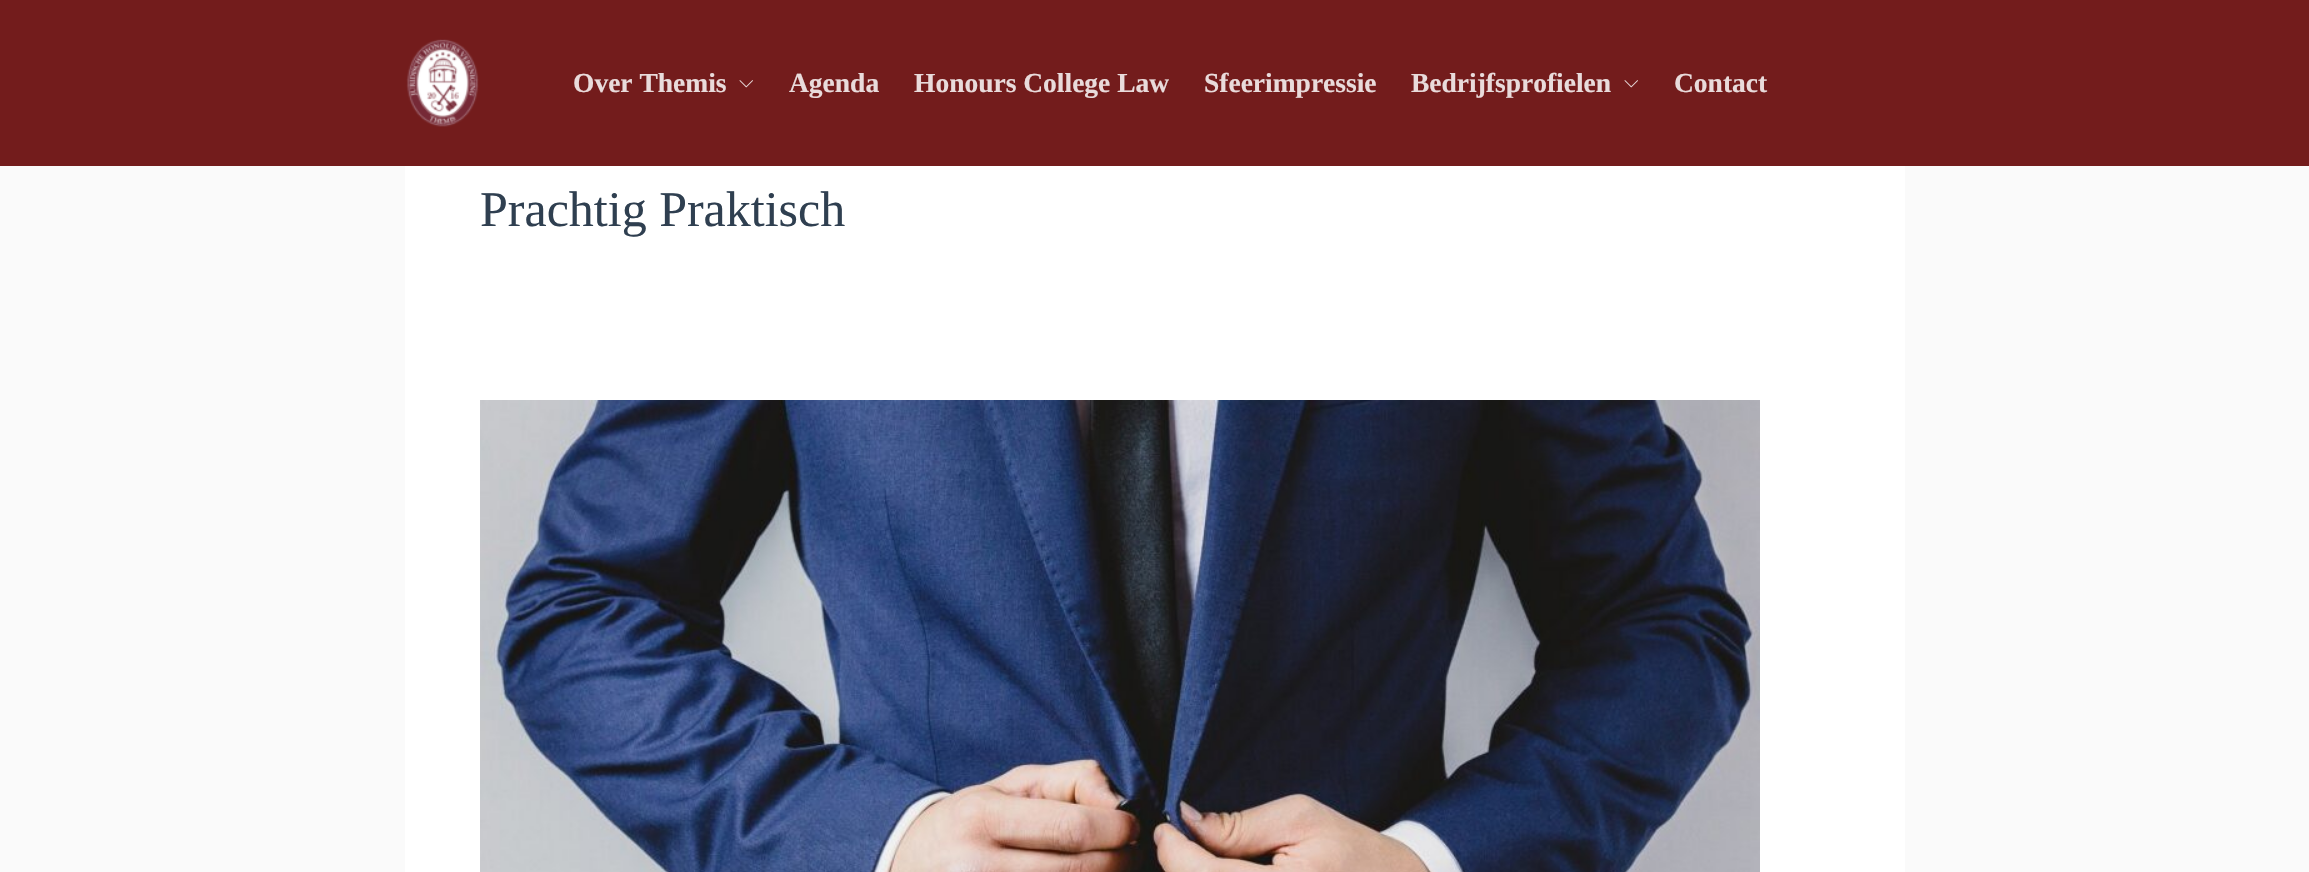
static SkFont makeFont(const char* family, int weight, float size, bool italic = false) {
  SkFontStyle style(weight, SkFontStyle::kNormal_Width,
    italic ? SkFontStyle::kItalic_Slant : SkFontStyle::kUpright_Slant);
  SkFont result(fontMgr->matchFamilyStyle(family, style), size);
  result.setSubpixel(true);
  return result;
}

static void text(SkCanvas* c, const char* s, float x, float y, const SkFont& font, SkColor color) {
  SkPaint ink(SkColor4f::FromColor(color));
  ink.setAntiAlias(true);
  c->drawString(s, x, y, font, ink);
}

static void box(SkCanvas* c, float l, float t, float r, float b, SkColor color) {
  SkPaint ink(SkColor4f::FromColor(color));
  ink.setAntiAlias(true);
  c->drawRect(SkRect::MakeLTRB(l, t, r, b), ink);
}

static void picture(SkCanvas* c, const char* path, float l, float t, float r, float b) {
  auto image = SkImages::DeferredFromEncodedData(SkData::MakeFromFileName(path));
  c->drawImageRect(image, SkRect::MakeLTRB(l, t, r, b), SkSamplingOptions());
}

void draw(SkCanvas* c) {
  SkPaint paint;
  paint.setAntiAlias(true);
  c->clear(0xfffafafa);
  box(c, 0, 0, 2309, 166, 0xff731c1c);
  picture(c, "img_01.png", 406, 39, 479, 127);
  SkFont face1 = makeFont("Liberation Serif", 700, 27.5f);
  text(c, "Over Themis", 573, 92, face1, 0xffe9dbdb);
  picture(c, "img_02.png", 739, 80, 753, 88);
  text(c, "Agenda", 789, 92, face1, 0xffe9dbdb);
  text(c, "Honours College Law", 914, 92, face1, 0xffe9dbdb);
  text(c, "Sfeerimpressie", 1204, 92, face1, 0xffe9dbdb);
  text(c, "Bedrijfsprofielen", 1411, 92, face1, 0xffe9dbdb);
  picture(c, "img_02.png", 1624, 80, 1638, 88);
  text(c, "Contact", 1674, 92, face1, 0xffe9dbdb);
  box(c, 405, 166, 1905, 872, 0xffffffff);
  SkFont face2 = makeFont("Liberation Serif", 400, 50);
  text(c, "Prachtig Praktisch", 480, 226, face2, 0xff2f3f50);
  picture(c, "img_03.png", 480, 400, 1760, 872);
}
